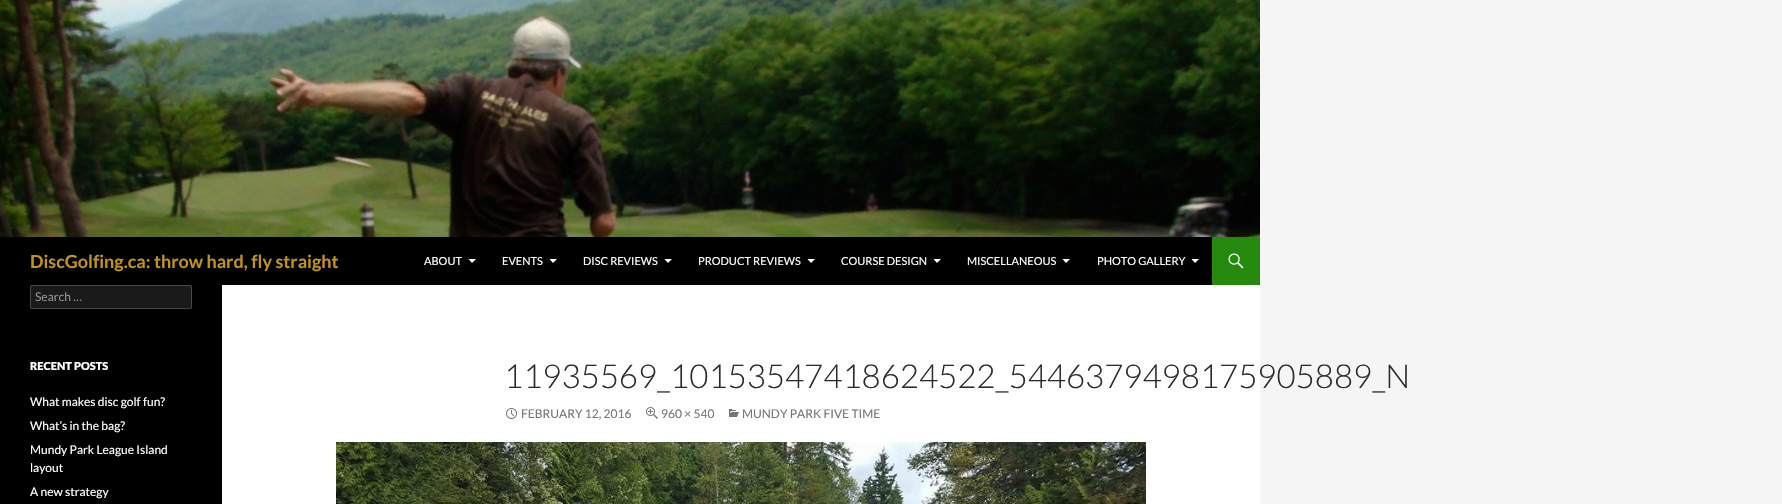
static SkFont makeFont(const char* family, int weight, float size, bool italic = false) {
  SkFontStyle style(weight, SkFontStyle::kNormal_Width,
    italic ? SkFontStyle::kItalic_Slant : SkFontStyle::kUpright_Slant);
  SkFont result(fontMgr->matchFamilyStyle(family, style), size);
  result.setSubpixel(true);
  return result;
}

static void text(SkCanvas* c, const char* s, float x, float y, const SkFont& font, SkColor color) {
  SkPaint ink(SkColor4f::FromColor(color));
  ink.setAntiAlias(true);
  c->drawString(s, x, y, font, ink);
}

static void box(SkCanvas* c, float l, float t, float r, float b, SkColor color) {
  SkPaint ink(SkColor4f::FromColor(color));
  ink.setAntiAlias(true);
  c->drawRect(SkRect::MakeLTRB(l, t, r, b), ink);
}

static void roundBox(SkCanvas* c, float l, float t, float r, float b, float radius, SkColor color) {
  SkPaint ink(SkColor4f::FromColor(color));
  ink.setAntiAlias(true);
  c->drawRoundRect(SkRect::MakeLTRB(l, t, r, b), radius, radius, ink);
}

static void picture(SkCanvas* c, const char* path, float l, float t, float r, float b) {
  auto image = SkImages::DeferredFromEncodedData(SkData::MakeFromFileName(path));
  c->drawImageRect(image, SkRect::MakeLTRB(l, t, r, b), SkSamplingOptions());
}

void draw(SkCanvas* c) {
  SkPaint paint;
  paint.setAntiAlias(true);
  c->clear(0xfff5f5f5);
  box(c, 222, 285, 1260, 504, 0xffffffff);
  picture(c, "img_01.png", 0, 0, 1260, 237);
  box(c, 0, 237, 1212, 285, 0xff000000);
  SkFont face1 = makeFont("Lato", 700, 18);
  text(c, "DiscGolfing.ca: throw hard, fly straight", 30, 268, face1, 0xffc19419);
  SkFont face2 = makeFont("Lato", 400, 11);
  text(c, "ABOUT", 424, 265, face2, 0xffffffff);
  paint.setColor(0xffffffff);
  c->drawPath(SkPathBuilder().moveTo(468.5f, 259).lineTo(476, 259).lineTo(472, 263).close().detach(), paint);
  text(c, "EVENTS", 502, 265, face2, 0xffffffff);
  c->drawPath(SkPathBuilder().moveTo(549.5f, 259).lineTo(557, 259).lineTo(553, 263).close().detach(), paint);
  text(c, "DISC REVIEWS", 583, 265, face2, 0xffffffff);
  c->drawPath(SkPathBuilder().moveTo(664.5f, 259).lineTo(672, 259).lineTo(668, 263).close().detach(), paint);
  text(c, "PRODUCT REVIEWS", 698, 265, face2, 0xffffffff);
  c->drawPath(SkPathBuilder().moveTo(807.5f, 259).lineTo(815, 259).lineTo(811, 263).close().detach(), paint);
  text(c, "COURSE DESIGN", 841, 265, face2, 0xffffffff);
  c->drawPath(SkPathBuilder().moveTo(933.5f, 259).lineTo(941, 259).lineTo(937, 263).close().detach(), paint);
  text(c, "MISCELLANEOUS", 967, 265, face2, 0xffffffff);
  c->drawPath(SkPathBuilder().moveTo(1062.5f, 259).lineTo(1070, 259).lineTo(1066, 263).close().detach(), paint);
  text(c, "PHOTO GALLERY", 1097, 265, face2, 0xffffffff);
  c->drawPath(SkPathBuilder().moveTo(1191.5f, 259).lineTo(1199, 259).lineTo(1195, 263).close().detach(), paint);
  box(c, 1212, 237, 1260, 285, 0xff24890d);
  picture(c, "img_02.png", 1228, 253, 1244, 269);
  box(c, 0, 285, 222, 504, 0xff000000);
  roundBox(c, 30, 285, 192, 309, 2, 0xff1a1a1a);
  paint.setStyle(SkPaint::kStroke_Style);
  paint.setStrokeWidth(1);
  paint.setColor(0x33ffffff);
  c->drawRoundRect(SkRect::MakeLTRB(30.5f, 285.5f, 191.5f, 308.5f), 1.5f, 1.5f, paint);
  SkFont face3 = makeFont("Lato", 400, 12);
  text(c, "Search …", 35, 301, face3, 0xff939393);
  SkFont face4 = makeFont("Lato", 900, 11);
  text(c, "RECENT POSTS", 30, 370, face4, 0xffffffff);
  text(c, "What makes disc golf fun?", 30, 406, face3, 0xffffffff);
  text(c, "What’s in the bag?", 30, 430, face3, 0xffffffff);
  text(c, "Mundy Park League Island", 30, 454, face3, 0xffffffff);
  text(c, "layout", 30, 472, face3, 0xffffffff);
  text(c, "A new strategy", 30, 496, face3, 0xffffffff);
  SkFont face5 = makeFont("Lato", 300, 33);
  text(c, "11935569_10153547418624522_5446379498175905889_N", 504, 388, face5, 0xff2b2b2b);
  picture(c, "img_03.png", 506, 408, 517, 419);
  text(c, "FEBRUARY 12, 2016", 521, 418, face3, 0xff767676);
  picture(c, "img_04.png", 646, 407, 658, 419);
  text(c, "960 × 540", 661, 418, face3, 0xff767676);
  picture(c, "img_05.png", 729, 409, 739, 417);
  text(c, "MUNDY PARK FIVE TIME", 742, 418, face3, 0xff767676);
  picture(c, "img_06.png", 336, 442, 1146, 504);
}
